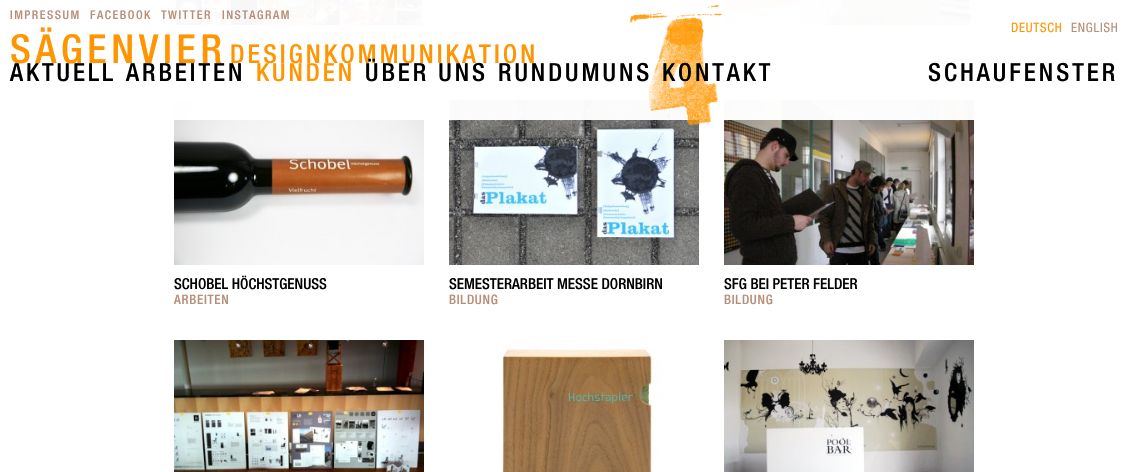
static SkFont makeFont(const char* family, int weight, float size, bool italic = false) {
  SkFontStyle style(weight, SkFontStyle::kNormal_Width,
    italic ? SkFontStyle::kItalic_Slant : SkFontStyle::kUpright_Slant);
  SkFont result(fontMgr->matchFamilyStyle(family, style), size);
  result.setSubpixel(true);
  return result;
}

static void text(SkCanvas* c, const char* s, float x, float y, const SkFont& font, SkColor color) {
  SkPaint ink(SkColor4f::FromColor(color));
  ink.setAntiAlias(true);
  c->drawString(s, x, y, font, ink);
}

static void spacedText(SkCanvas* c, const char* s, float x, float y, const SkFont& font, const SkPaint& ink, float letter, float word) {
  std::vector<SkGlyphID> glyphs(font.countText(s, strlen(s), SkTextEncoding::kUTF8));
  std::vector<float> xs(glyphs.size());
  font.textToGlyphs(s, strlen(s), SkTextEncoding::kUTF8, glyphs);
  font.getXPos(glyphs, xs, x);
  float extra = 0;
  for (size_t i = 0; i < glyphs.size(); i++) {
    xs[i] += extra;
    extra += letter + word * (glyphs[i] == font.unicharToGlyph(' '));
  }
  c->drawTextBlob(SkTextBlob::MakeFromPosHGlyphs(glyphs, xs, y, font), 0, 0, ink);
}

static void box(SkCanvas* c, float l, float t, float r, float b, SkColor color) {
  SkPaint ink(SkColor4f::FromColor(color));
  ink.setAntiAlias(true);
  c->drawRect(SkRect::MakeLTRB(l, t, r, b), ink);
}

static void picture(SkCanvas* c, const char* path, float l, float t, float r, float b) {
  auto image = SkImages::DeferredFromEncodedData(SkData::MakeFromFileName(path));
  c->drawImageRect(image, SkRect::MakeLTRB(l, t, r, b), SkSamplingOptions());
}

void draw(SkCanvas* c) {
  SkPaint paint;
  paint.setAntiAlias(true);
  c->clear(0xffffffff);
  picture(c, "img_02.png", 174, 0, 424, 25);
  picture(c, "img_03.png", 449, 0, 699, 25);
  picture(c, "img_04.png", 724, 0, 974, 25);
  picture(c, "img_05.png", 174, 100, 424, 265);
  picture(c, "img_06.png", 449, 100, 699, 265);
  picture(c, "img_07.png", 724, 100, 974, 265);
  box(c, 174, 0, 974, 120, 0xf7ffffff);
  SkFont face1 = makeFont("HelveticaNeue", 400, 12);
  paint.setColor(0xffb78e76);
  spacedText(c, "IMPRESSUM", 10, 19, face1, paint, 1.5f, 0);
  spacedText(c, "FACEBOOK", 90, 19, face1, paint, 1.5f, 0);
  spacedText(c, "TWITTER", 161, 19, face1, paint, 1.5f, 0);
  spacedText(c, "INSTAGRAM", 222, 19, face1, paint, 1.5f, 0);
  picture(c, "img_01.png", 630, 5, 722, 125);
  SkFont face2 = makeFont("HelveticaNeue", 400, 40);
  paint.setColor(0xffff9501);
  spacedText(c, "SÄGENVIER", 10, 63, face2, paint, 4.75f, 0);
  SkFont face3 = makeFont("HelveticaNeue", 400, 26);
  spacedText(c, "DESIGNKOMMUNIKATION", 230, 63, face3, paint, 3.1f, 0);
  SkFont face4 = makeFont("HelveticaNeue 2", 400, 13);
  spacedText(c, "DEUTSCH", 1011, 32, face4, paint, 0.75f, 0);
  paint.setColor(0xffb78e76);
  spacedText(c, "ENGLISH", 1071, 32, face4, paint, 0.75f, 0);
  SkFont face5 = makeFont("HelveticaNeue", 400, 25);
  paint.setColor(0xff000000);
  spacedText(c, "AKTUELL", 10, 81, face5, paint, 3, 0);
  spacedText(c, "ARBEITEN", 126, 81, face5, paint, 3, 0);
  paint.setColor(0xffff9501);
  spacedText(c, "KUNDEN", 256, 81, face5, paint, 3, 0);
  paint.setColor(0xff000000);
  spacedText(c, "ÜBER UNS", 365, 81, face5, paint, 3, 0);
  spacedText(c, "RUNDUMUNS", 498, 81, face5, paint, 3, 0);
  spacedText(c, "KONTAKT", 662, 81, face5, paint, 3, 0);
  spacedText(c, "SCHAUFENSTER", 928, 81, face5, paint, 3, 0);
  SkFont face6 = makeFont("HelveticaNeue", 400, 15);
  text(c, "SCHOBEL HÖCHSTGENUSS", 174, 289, face6, 0xff000000);
  SkFont face7 = makeFont("HelveticaNeue", 400, 13);
  paint.setColor(0xffb78e76);
  spacedText(c, "ARBEITEN", 174, 304, face7, paint, 0.75f, 0);
  text(c, "SEMESTERARBEIT MESSE DORNBIRN", 449, 289, face6, 0xff000000);
  spacedText(c, "BILDUNG", 449, 304, face7, paint, 0.75f, 0);
  text(c, "SFG BEI PETER FELDER", 724, 289, face6, 0xff000000);
  spacedText(c, "BILDUNG", 724, 304, face7, paint, 0.75f, 0);
  picture(c, "img_08.png", 174, 340, 424, 472);
  picture(c, "img_09.png", 449, 340, 699, 472);
  picture(c, "img_10.png", 724, 340, 974, 472);
}
